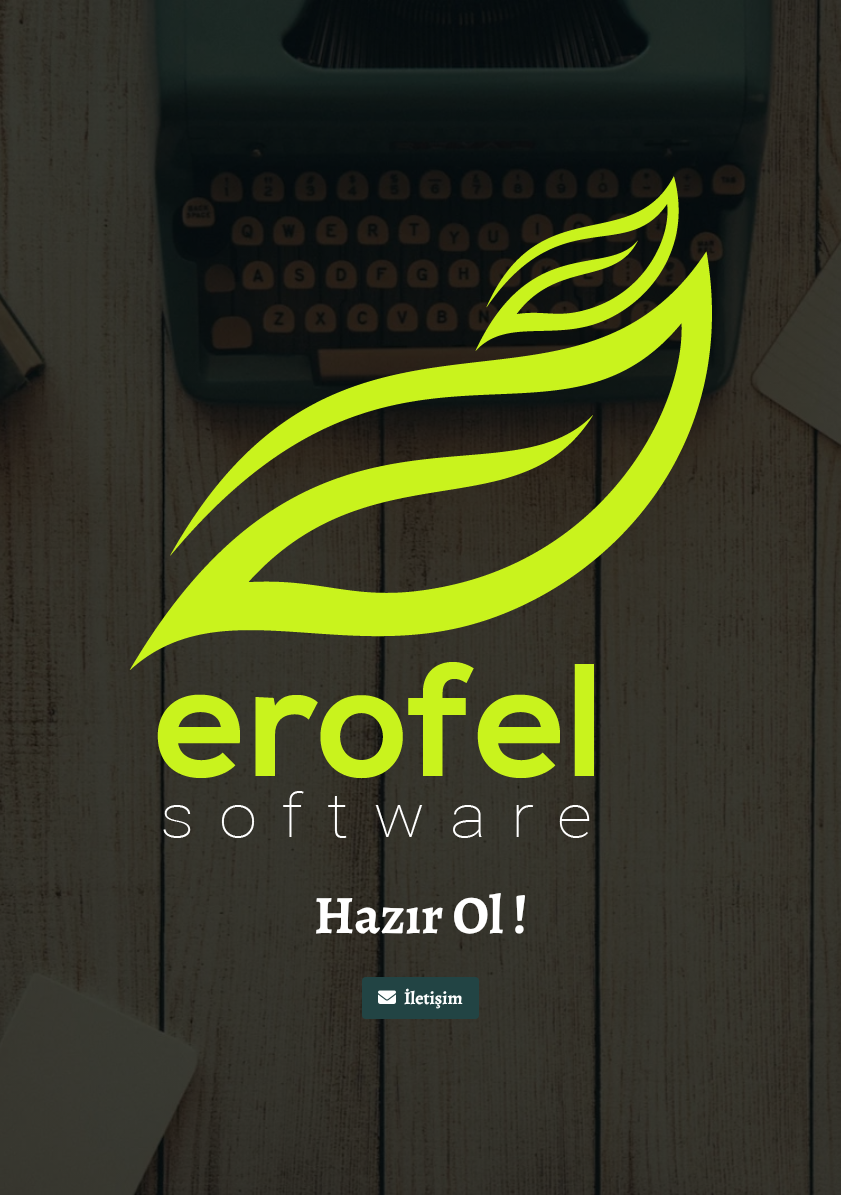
static SkFont makeFont(const char* family, int weight, float size, bool italic = false) {
  SkFontStyle style(weight, SkFontStyle::kNormal_Width,
    italic ? SkFontStyle::kItalic_Slant : SkFontStyle::kUpright_Slant);
  SkFont result(fontMgr->matchFamilyStyle(family, style), size);
  result.setSubpixel(true);
  return result;
}

static void text(SkCanvas* c, const char* s, float x, float y, const SkFont& font, SkColor color) {
  SkPaint ink(SkColor4f::FromColor(color));
  ink.setAntiAlias(true);
  c->drawString(s, x, y, font, ink);
}

static void roundBox(SkCanvas* c, float l, float t, float r, float b, float radius, SkColor color) {
  SkPaint ink(SkColor4f::FromColor(color));
  ink.setAntiAlias(true);
  c->drawRoundRect(SkRect::MakeLTRB(l, t, r, b), radius, radius, ink);
}

static void picture(SkCanvas* c, const char* path, float l, float t, float r, float b) {
  auto image = SkImages::DeferredFromEncodedData(SkData::MakeFromFileName(path));
  c->drawImageRect(image, SkRect::MakeLTRB(l, t, r, b), SkSamplingOptions());
}

void draw(SkCanvas* c) {
  SkPaint paint;
  paint.setAntiAlias(true);
  c->clear(0xffffffff);
  picture(c, "img_01.png", 0, 0, 841, 1195);
  picture(c, "img_02.png", 129, 176, 712, 838);
  SkFont face1 = makeFont("Alegreya", 700, 54);
  text(c, "Hazır Ol !", 314, 933, face1, 0xffffffff);
  roundBox(c, 362, 977, 479, 1019, 4, 0xff224444);
  picture(c, "img_03.png", 378, 990, 396, 1004);
  SkFont face2 = makeFont("Alegreya", 700, 18);
  text(c, "İletişim", 404, 1004, face2, 0xffffffff);
}
